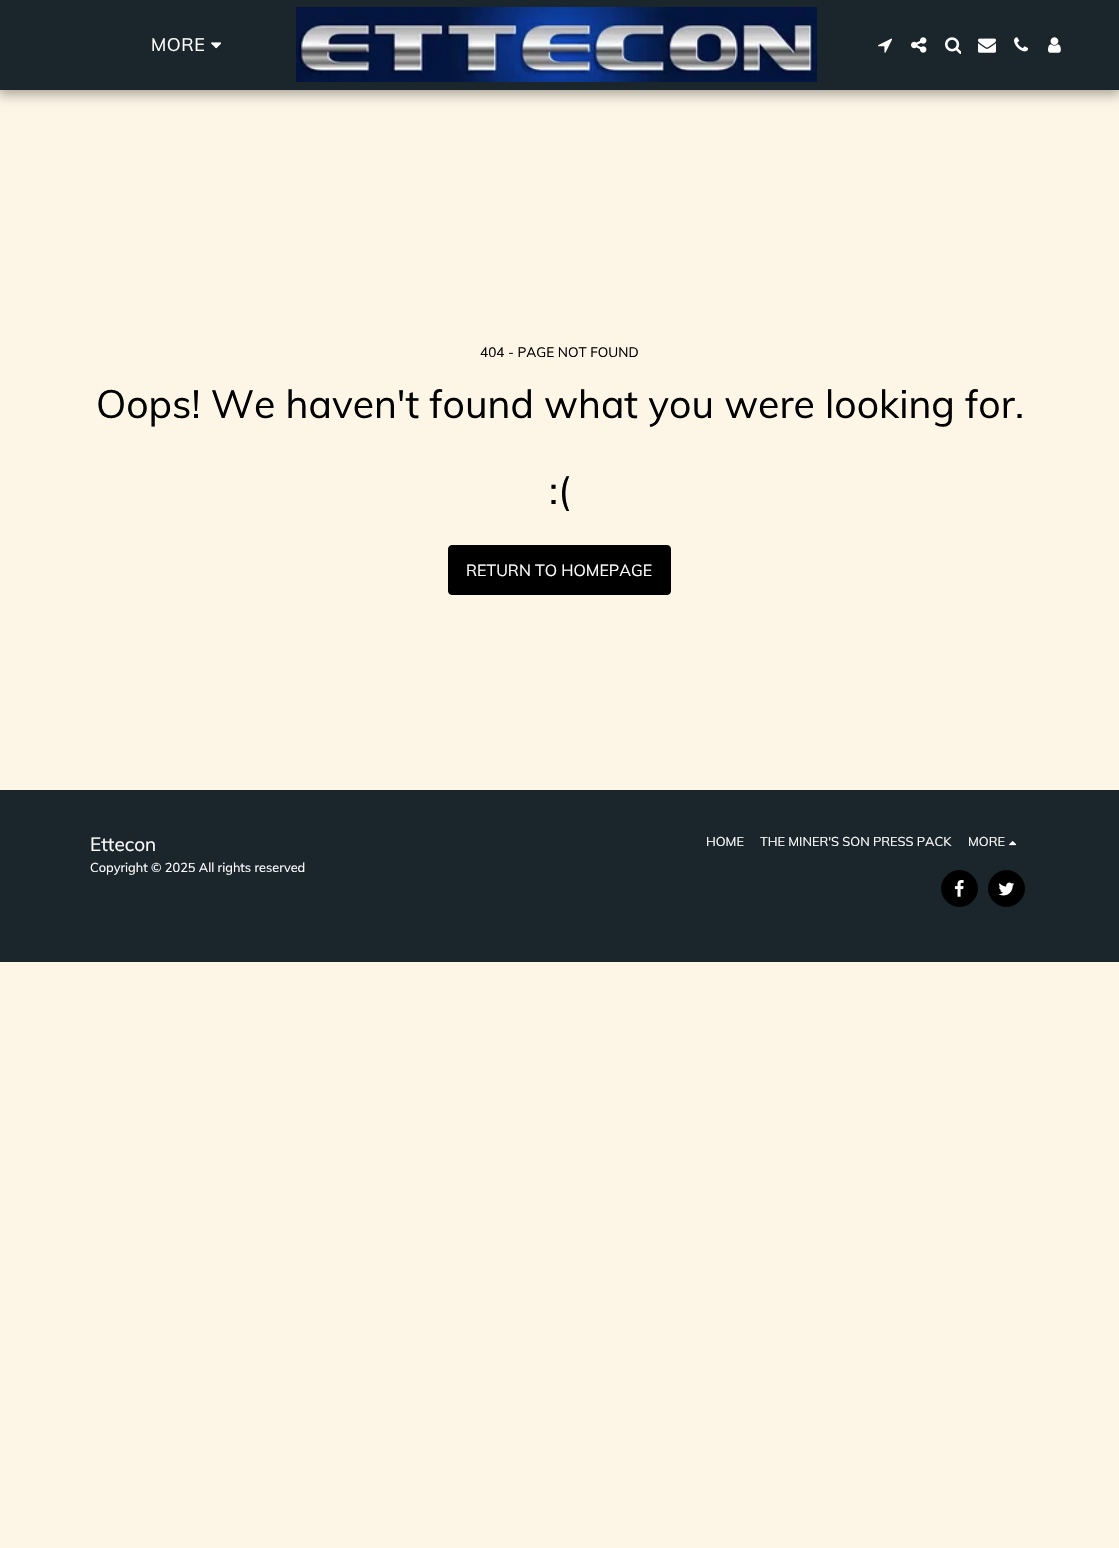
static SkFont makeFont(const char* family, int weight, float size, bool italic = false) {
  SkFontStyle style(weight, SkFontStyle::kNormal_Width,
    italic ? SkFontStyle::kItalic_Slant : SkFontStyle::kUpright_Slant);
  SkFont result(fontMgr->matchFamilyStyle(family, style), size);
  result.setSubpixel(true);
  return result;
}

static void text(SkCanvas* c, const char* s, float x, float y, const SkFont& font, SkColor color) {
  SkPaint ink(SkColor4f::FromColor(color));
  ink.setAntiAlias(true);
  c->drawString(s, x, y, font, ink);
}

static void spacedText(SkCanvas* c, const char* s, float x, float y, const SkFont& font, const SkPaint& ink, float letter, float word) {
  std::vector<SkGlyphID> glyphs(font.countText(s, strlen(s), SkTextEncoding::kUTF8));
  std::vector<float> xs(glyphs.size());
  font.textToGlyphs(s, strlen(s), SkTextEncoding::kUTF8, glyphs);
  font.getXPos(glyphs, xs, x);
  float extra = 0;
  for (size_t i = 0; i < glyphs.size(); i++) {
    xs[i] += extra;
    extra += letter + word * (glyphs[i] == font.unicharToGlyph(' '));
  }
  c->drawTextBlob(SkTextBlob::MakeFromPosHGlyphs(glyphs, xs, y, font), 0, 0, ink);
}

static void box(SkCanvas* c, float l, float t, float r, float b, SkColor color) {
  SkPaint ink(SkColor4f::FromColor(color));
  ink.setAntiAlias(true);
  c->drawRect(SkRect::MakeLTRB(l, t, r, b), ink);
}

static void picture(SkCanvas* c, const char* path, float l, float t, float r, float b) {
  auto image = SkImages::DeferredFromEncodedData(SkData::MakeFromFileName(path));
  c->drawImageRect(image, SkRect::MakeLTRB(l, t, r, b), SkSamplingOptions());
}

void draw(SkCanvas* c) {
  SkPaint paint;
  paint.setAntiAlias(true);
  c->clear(0xfffdf5e6);
  paint.setColor(0x59000000);
  paint.setMaskFilter(SkMaskFilter::MakeBlur(kNormal_SkBlurStyle, 6));
  c->drawRect(SkRect::MakeLTRB(-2, 0, 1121, 94), paint);
  paint.setMaskFilter(nullptr);
  box(c, 0, 0, 1119, 90, 0xff1b262c);
  SkFont face1 = makeFont("Muli", 400, 18);
  paint.setColor(0xffffffff);
  spacedText(c, "MORE", 151, 51, face1, paint, 0.5f, 0);
  picture(c, "img_01.png", 211, 42, 221, 49);
  picture(c, "img_02.png", 296, 7, 817, 82);
  picture(c, "img_03.png", 878, 38, 892, 53);
  picture(c, "img_04.png", 911, 37, 927, 53);
  picture(c, "img_05.png", 945, 37, 961, 54);
  picture(c, "img_06.png", 978, 38, 996, 53);
  picture(c, "img_07.png", 1014, 37, 1028, 52);
  picture(c, "img_08.png", 1048, 37, 1061, 53);
  SkFont face2 = makeFont("Muli", 400, 13.6f);
  text(c, "404 - PAGE NOT FOUND", 480, 357, face2, 0xff000000);
  SkFont face3 = makeFont("Muli", 400, 39.1f);
  text(c, "Oops! We haven't found what you were looking for.", 96, 418, face3, 0xff000000);
  text(c, ":(", 549, 504, face3, 0xff000000);
  paint.setColor(0xff000000);
  c->drawRoundRect(SkRect::MakeLTRB(448.5f, 545.5f, 670.5f, 594.5f), 3.5f, 3.5f, paint);
  paint.setStyle(SkPaint::kStroke_Style);
  paint.setStrokeWidth(1);
  c->drawRoundRect(SkRect::MakeLTRB(448.5f, 545.5f, 670.5f, 594.5f), 3.5f, 3.5f, paint);
  SkFont face4 = makeFont("Muli", 400, 16);
  text(c, "RETURN TO HOMEPAGE", 466, 576, face4, 0xffffffff);
  box(c, 0, 790, 1119, 962, 0xff1b262c);
  SkFont face5 = makeFont("Muli", 400, 19);
  text(c, "Ettecon", 90, 851, face5, 0xffffffff);
  SkFont face6 = makeFont("Muli", 400, 12.75f);
  text(c, "Copyright © 2025 All rights reserved", 90, 872, face6, 0xffffffff);
  text(c, "HOME", 706, 846, face6, 0xffffffff);
  text(c, "THE MINER'S SON PRESS PACK", 760, 846, face6, 0xffffffff);
  text(c, "MORE", 968, 846, face6, 0xffffffff);
  picture(c, "img_09.png", 1009, 841, 1016, 846);
  paint.setStyle(SkPaint::kFill_Style);
  c->drawCircle(959.5f, 888.5f, 18, paint);
  paint.setStyle(SkPaint::kStroke_Style);
  c->drawCircle(959.5f, 888.5f, 18, paint);
  picture(c, "img_10.png", 954, 880, 964, 897);
  paint.setStyle(SkPaint::kFill_Style);
  c->drawCircle(1006.5f, 888.5f, 18, paint);
  paint.setStyle(SkPaint::kStroke_Style);
  c->drawCircle(1006.5f, 888.5f, 18, paint);
  picture(c, "img_11.png", 998, 882, 1014, 896);
}
